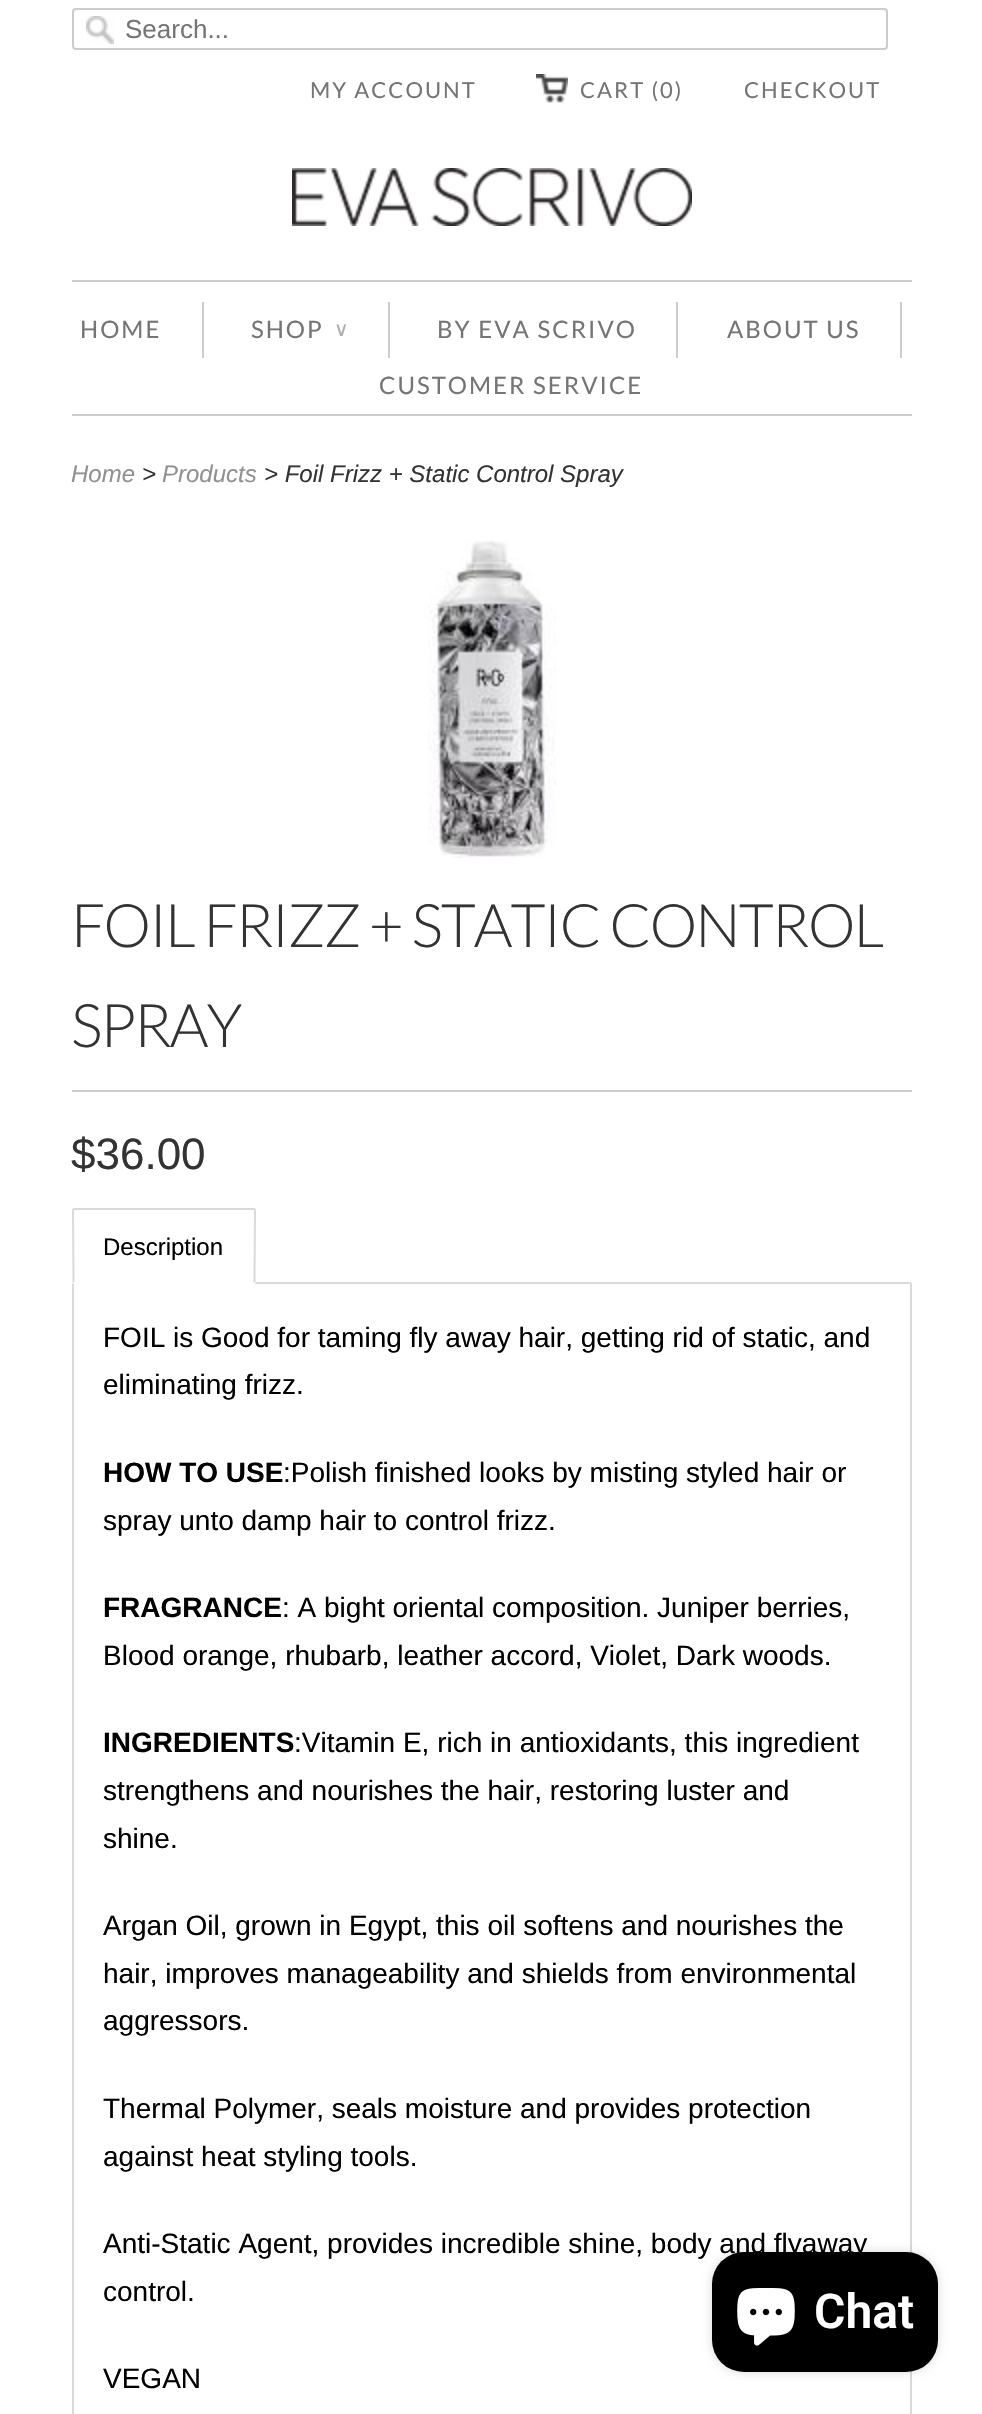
static SkFont makeFont(const char* family, int weight, float size, bool italic = false) {
  SkFontStyle style(weight, SkFontStyle::kNormal_Width,
    italic ? SkFontStyle::kItalic_Slant : SkFontStyle::kUpright_Slant);
  SkFont result(fontMgr->matchFamilyStyle(family, style), size);
  result.setSubpixel(true);
  return result;
}

static void text(SkCanvas* c, const char* s, float x, float y, const SkFont& font, SkColor color) {
  SkPaint ink(SkColor4f::FromColor(color));
  ink.setAntiAlias(true);
  c->drawString(s, x, y, font, ink);
}

static void spacedText(SkCanvas* c, const char* s, float x, float y, const SkFont& font, const SkPaint& ink, float letter, float word) {
  std::vector<SkGlyphID> glyphs(font.countText(s, strlen(s), SkTextEncoding::kUTF8));
  std::vector<float> xs(glyphs.size());
  font.textToGlyphs(s, strlen(s), SkTextEncoding::kUTF8, glyphs);
  font.getXPos(glyphs, xs, x);
  float extra = 0;
  for (size_t i = 0; i < glyphs.size(); i++) {
    xs[i] += extra;
    extra += letter + word * (glyphs[i] == font.unicharToGlyph(' '));
  }
  c->drawTextBlob(SkTextBlob::MakeFromPosHGlyphs(glyphs, xs, y, font), 0, 0, ink);
}

static void box(SkCanvas* c, float l, float t, float r, float b, SkColor color) {
  SkPaint ink(SkColor4f::FromColor(color));
  ink.setAntiAlias(true);
  c->drawRect(SkRect::MakeLTRB(l, t, r, b), ink);
}

static void roundBox(SkCanvas* c, float l, float t, float r, float b, float radius, SkColor color) {
  SkPaint ink(SkColor4f::FromColor(color));
  ink.setAntiAlias(true);
  c->drawRoundRect(SkRect::MakeLTRB(l, t, r, b), radius, radius, ink);
}

static void picture(SkCanvas* c, const char* path, float l, float t, float r, float b) {
  auto image = SkImages::DeferredFromEncodedData(SkData::MakeFromFileName(path));
  c->drawImageRect(image, SkRect::MakeLTRB(l, t, r, b), SkSamplingOptions());
}

void draw(SkCanvas* c) {
  SkPaint paint;
  paint.setAntiAlias(true);
  c->clear(0xffffffff);
  picture(c, "img_01.png", 86, 16, 114, 44);
  paint.setStyle(SkPaint::kStroke_Style);
  paint.setStrokeWidth(2);
  paint.setColor(0xffcccccc);
  c->drawRoundRect(SkRect::MakeLTRB(73, 9, 887, 49), 3, 3, paint);
  SkFont face1 = makeFont("Liberation Sans", 400, 26);
  text(c, "Search...", 125, 38, face1, 0xff757575);
  SkFont face2 = makeFont("Lato", 400, 22);
  paint.setStyle(SkPaint::kFill_Style);
  paint.setColor(0xff757575);
  spacedText(c, "MY ACCOUNT", 310, 98, face2, paint, 2, 0);
  picture(c, "img_02.png", 536, 74, 568, 103);
  spacedText(c, "CART (0)", 580, 98, face2, paint, 2, 0);
  spacedText(c, "CHECKOUT", 744, 98, face2, paint, 2, 0);
  picture(c, "img_03.png", 292, 168, 692, 226);
  box(c, 72, 280, 912, 282, 0xffcccccc);
  box(c, 72, 414, 912, 416, 0xffcccccc);
  box(c, 202, 302, 204, 358, 0xffcccccc);
  SkFont face3 = makeFont("Lato", 400, 24);
  spacedText(c, "HOME", 80, 338, face3, paint, 2, 0);
  box(c, 388, 302, 390, 358, 0xffcccccc);
  spacedText(c, "SHOP", 251, 338, face3, paint, 2, 0);
  SkFont face4 = makeFont("DejaVu Sans", 400, 20);
  paint.setColor(0xffadadad);
  spacedText(c, "∨", 334, 336, face4, paint, 2, 0);
  box(c, 676, 302, 678, 358, 0xffcccccc);
  paint.setColor(0xff757575);
  spacedText(c, "BY EVA SCRIVO", 437, 338, face3, paint, 2, 0);
  box(c, 900, 302, 902, 358, 0xffcccccc);
  spacedText(c, "ABOUT US", 727, 338, face3, paint, 2, 0);
  spacedText(c, "CUSTOMER SERVICE", 379, 394, face3, paint, 2, 0);
  SkFont face5 = makeFont("Liberation Sans", 400, 24, true);
  text(c, "Home", 71, 482, face5, 0xff919191);
  text(c, ">", 142, 482, face5, 0xff333333);
  text(c, "Products", 162, 482, face5, 0xff919191);
  text(c, "> Foil Frizz + Static Control Spray", 264, 482, face5, 0xff333333);
  picture(c, "img_04.png", 428, 540, 556, 858);
  box(c, 72, 1090, 912, 1092, 0xffcccccc);
  SkFont face6 = makeFont("Lato", 300, 60);
  paint.setColor(0xff333333);
  spacedText(c, "FOIL FRIZZ + STATIC CONTROL", 71, 947, face6, paint, -2, 0);
  spacedText(c, "SPRAY", 71, 1047, face6, paint, -2, 0);
  SkFont face7 = makeFont("Liberation Sans", 400, 44);
  text(c, "$36.00", 71, 1169, face7, 0xff333333);
  paint.setStyle(SkPaint::kStroke_Style);
  paint.setColor(0xffdbdada);
  c->drawRoundRect(SkRect::MakeLTRB(73, 1283, 911, 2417), 1, 1, paint);
  roundBox(c, 72, 1208, 256, 1284, 2, 0xffffffff);
  c->drawPath(SkPathBuilder().moveTo(73.5f, 1282.5f).lineTo(73, 1210).lineTo(74, 1209).lineTo(254, 1209).lineTo(255, 1210).lineTo(254.5f, 1282.5f).detach(), paint);
  SkFont face8 = makeFont("Liberation Sans", 400, 24);
  text(c, "Description", 103, 1255, face8, 0xff000000);
  SkFont face9 = makeFont("Liberation Sans", 400, 28);
  text(c, "FOIL is Good for taming fly away hair, getting rid of static, and", 103, 1347, face9, 0xff000000);
  text(c, "eliminating frizz.", 103, 1394, face9, 0xff000000);
  SkFont face10 = makeFont("Liberation Sans", 700, 28);
  text(c, "HOW TO USE", 103, 1482, face10, 0xff000000);
  text(c, ":Polish finished looks by misting styled hair or", 283, 1482, face9, 0xff000000);
  text(c, "spray unto damp hair to control frizz.", 103, 1530, face9, 0xff000000);
  text(c, "FRAGRANCE", 103, 1617, face10, 0xff000000);
  text(c, ": A bight oriental composition. Juniper berries,", 282, 1617, face9, 0xff000000);
  text(c, "Blood orange, rhubarb, leather accord, Violet, Dark woods.", 103, 1665, face9, 0xff000000);
  text(c, "INGREDIENTS", 103, 1752, face10, 0xff000000);
  text(c, ":Vitamin E, rich in antioxidants, this ingredient", 294, 1752, face9, 0xff000000);
  text(c, "strengthens and nourishes the hair, restoring luster and", 103, 1800, face9, 0xff000000);
  text(c, "shine.", 103, 1848, face9, 0xff000000);
  text(c, "Argan Oil, grown in Egypt, this oil softens and nourishes the", 103, 1935, face9, 0xff000000);
  text(c, "hair, improves manageability and shields from environmental", 103, 1983, face9, 0xff000000);
  text(c, "aggressors.", 103, 2030, face9, 0xff000000);
  text(c, "Thermal Polymer, seals moisture and provides protection", 103, 2118, face9, 0xff000000);
  text(c, "against heat styling tools.", 103, 2166, face9, 0xff000000);
  text(c, "Anti-Static Agent, provides incredible shine, body and flyaway", 103, 2253, face9, 0xff000000);
  text(c, "control.", 103, 2301, face9, 0xff000000);
  text(c, "VEGAN", 103, 2388, face9, 0xff000000);
  paint.setStyle(SkPaint::kFill_Style);
  paint.setColor(0x26000000);
  paint.setMaskFilter(SkMaskFilter::MakeBlur(kNormal_SkBlurStyle, 5));
  c->drawRoundRect(SkRect::MakeLTRB(712, 2252, 938, 2372), 32, 32, paint);
  paint.setMaskFilter(nullptr);
  roundBox(c, 712, 2252, 938, 2372, 32, 0xff000000);
  picture(c, "img_05.png", 737, 2288, 795, 2346);
  SkFont face11 = makeFont("Roboto", 600, 48);
  text(c, "Chat", 814, 2328, face11, 0xffffffff);
}
